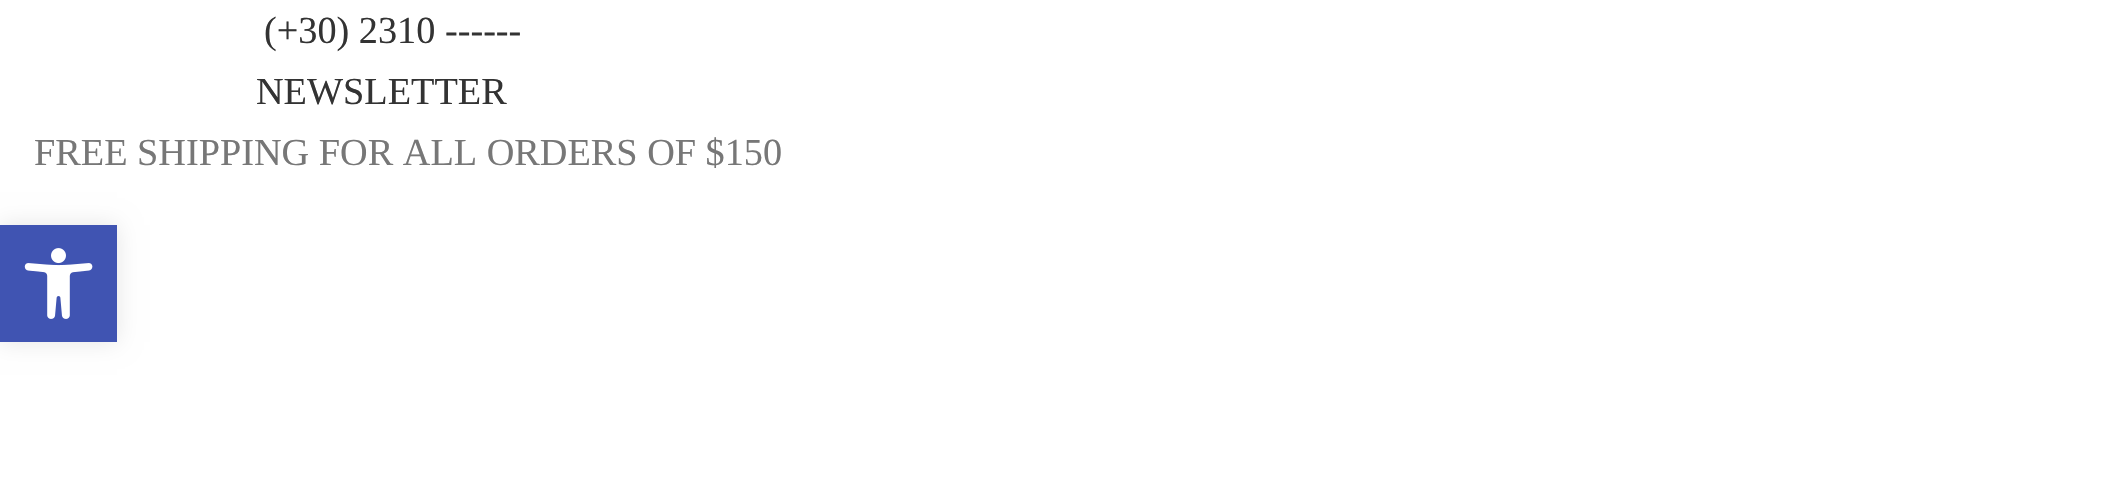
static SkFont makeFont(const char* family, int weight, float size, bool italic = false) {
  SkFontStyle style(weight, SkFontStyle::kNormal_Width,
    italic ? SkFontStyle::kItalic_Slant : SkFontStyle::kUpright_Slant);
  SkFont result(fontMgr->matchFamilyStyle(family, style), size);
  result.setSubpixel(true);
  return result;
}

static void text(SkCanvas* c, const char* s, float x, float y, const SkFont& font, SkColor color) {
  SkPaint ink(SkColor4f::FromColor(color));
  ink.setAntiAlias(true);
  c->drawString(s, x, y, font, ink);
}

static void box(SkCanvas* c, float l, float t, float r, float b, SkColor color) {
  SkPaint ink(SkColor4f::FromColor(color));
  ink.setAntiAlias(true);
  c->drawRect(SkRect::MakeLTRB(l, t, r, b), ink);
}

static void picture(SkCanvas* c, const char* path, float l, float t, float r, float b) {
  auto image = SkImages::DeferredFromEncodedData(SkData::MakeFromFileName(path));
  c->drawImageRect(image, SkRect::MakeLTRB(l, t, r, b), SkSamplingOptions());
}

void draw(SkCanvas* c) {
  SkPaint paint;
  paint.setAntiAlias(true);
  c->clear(0xffffffff);
  SkFont face1 = makeFont("Liberation Serif", 400, 38.25f);
  text(c, "(+30) 2310 ------", 264, 43, face1, 0xff333333);
  text(c, "NEWSLETTER", 256, 104, face1, 0xff333333);
  text(c, "FREE SHIPPING FOR ALL ORDERS OF $150", 34, 165, face1, 0xff777777);
  paint.setColor(0x1a000000);
  paint.setMaskFilter(SkMaskFilter::MakeBlur(kNormal_SkBlurStyle, 11));
  c->drawRect(SkRect::MakeLTRB(0, 225, 117, 342), paint);
  paint.setMaskFilter(nullptr);
  box(c, 0, 225, 117, 342, 0xff4054b2);
  picture(c, "img_01.png", 24, 248, 93, 319);
}
